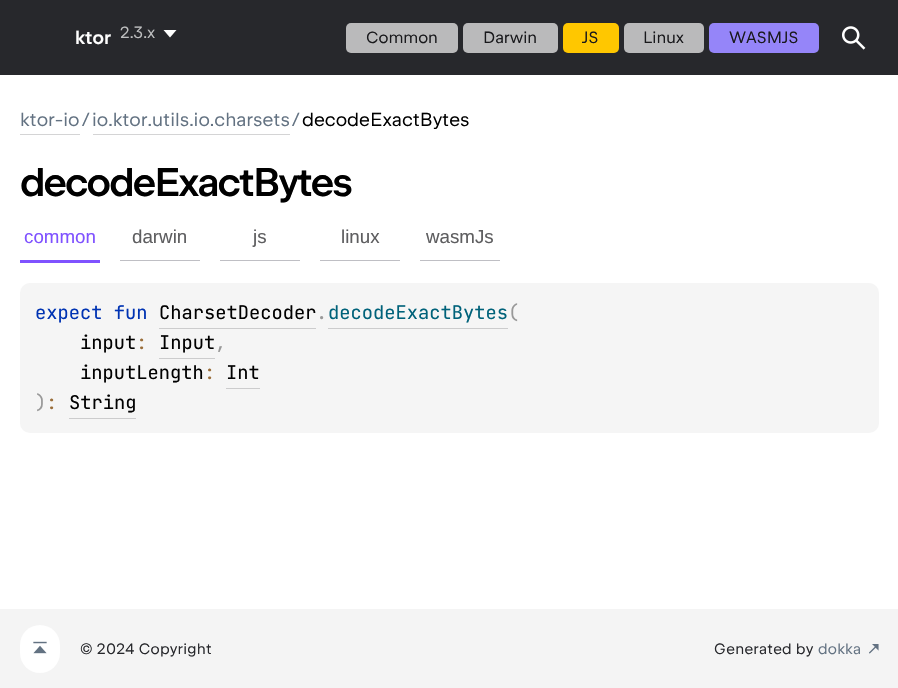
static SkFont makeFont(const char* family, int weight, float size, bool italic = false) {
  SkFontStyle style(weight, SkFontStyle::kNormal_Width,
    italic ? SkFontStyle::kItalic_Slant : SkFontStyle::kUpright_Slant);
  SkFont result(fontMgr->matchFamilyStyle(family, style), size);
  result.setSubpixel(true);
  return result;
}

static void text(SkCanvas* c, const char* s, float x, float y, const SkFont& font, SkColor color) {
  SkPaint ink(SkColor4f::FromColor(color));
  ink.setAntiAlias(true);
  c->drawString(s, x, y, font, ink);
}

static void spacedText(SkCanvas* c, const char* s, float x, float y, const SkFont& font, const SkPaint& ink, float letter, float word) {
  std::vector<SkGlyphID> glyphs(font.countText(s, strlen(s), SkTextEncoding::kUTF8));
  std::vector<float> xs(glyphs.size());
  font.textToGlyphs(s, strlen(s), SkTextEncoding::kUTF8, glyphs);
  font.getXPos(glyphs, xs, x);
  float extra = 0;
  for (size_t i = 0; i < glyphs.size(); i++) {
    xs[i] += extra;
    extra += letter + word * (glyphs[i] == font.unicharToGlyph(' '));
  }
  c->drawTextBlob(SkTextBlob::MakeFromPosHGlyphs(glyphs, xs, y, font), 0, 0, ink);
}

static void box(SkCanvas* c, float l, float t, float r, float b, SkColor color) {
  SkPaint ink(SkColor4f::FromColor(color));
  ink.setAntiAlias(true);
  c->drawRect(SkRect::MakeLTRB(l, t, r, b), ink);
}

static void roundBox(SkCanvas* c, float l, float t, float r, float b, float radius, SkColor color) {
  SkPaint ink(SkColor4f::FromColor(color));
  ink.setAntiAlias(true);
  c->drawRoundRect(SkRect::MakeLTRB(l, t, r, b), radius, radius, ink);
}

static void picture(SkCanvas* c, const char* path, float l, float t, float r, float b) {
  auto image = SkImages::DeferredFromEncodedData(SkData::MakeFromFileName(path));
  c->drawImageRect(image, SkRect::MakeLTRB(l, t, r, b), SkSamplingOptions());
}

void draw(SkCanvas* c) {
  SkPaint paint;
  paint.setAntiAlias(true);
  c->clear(0xffffffff);
  box(c, 0, 0, 898, 75, 0xff27282c);
  SkFont face1 = makeFont("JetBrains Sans", 500, 18.75f);
  text(c, "ktor", 75, 44, face1, 0xffffffff);
  SkFont face2 = makeFont("JetBrains Sans", 400, 16.25f);
  text(c, "2.3.x", 120, 38, face2, 0xffbebfc0);
  paint.setColor(0xffffffff);
  c->drawPath(SkPathBuilder().moveTo(170, 37.5f).lineTo(163.5f, 30).lineTo(176.5f, 30).close().detach(), paint);
  roundBox(c, 346, 23, 458, 53, 5, 0xffbababb);
  text(c, "Common", 366, 43, face2, 0xff19191c);
  roundBox(c, 463, 23, 558, 53, 5, 0xffbababb);
  text(c, "Darwin", 483, 43, face2, 0xff19191c);
  roundBox(c, 563, 23, 619, 53, 5, 0xffffc700);
  text(c, "JS", 582, 43, face2, 0xff19191c);
  roundBox(c, 624, 23, 704, 53, 5, 0xffbababb);
  text(c, "Linux", 643, 43, face2, 0xff19191c);
  roundBox(c, 709, 23, 819, 53, 5, 0xff9585f9);
  text(c, "WASMJS", 729, 43, face2, 0xff19191c);
  picture(c, "img_01.png", 842, 26, 866, 50);
  SkFont face3 = makeFont("JetBrains Sans", 400, 18.75f);
  text(c, "ktor-io", 20, 126, face3, 0xff637282);
  box(c, 20, 134, 80, 135, 0xffd4d4d5);
  text(c, "/", 82, 126, face3, 0xff637282);
  text(c, "io.ktor.utils.io.charsets", 92, 126, face3, 0xff637282);
  box(c, 93, 134, 290, 135, 0xffd4d4d5);
  text(c, "/", 292, 126, face3, 0xff637282);
  text(c, "decodeExactBytes", 302, 126, face3, 0xff000000);
  SkFont face4 = makeFont("JetBrains Sans", 500, 40);
  paint.setColor(0xff000000);
  spacedText(c, "decodeExactBytes", 20, 196, face4, paint, -1.9f, 0);
  box(c, 20, 260, 100, 263, 0xff7f52ff);
  SkFont face5 = makeFont("Liberation Sans", 400, 18.75f);
  text(c, "common", 24, 243, face5, 0xff7f52ff);
  box(c, 120, 260, 200, 261, 0xffbfbfc4);
  text(c, "darwin", 132, 243, face5, 0xff5e5e60);
  box(c, 220, 260, 300, 261, 0xffbfbfc4);
  text(c, "js", 253, 243, face5, 0xff5e5e60);
  box(c, 320, 260, 400, 261, 0xffbfbfc4);
  text(c, "linux", 341, 243, face5, 0xff5e5e60);
  box(c, 420, 260, 500, 261, 0xffbfbfc4);
  text(c, "wasmJs", 426, 243, face5, 0xff5e5e60);
  roundBox(c, 20, 283, 879, 433, 10, 0xfff5f5f5);
  SkFont face6 = makeFont("JetBrains Mono", 400, 18.75f);
  text(c, "expect fun", 35, 319, face6, 0xff0033b3);
  text(c, "CharsetDecoder", 159, 319, face6, 0xff000000);
  box(c, 159, 328, 316, 329, 0xffcccccd);
  text(c, ".", 316, 319, face6, 0xff999999);
  text(c, "decodeExactBytes", 328, 319, face6, 0xff00627a);
  box(c, 328, 328, 508, 329, 0xffcccccd);
  text(c, "(", 508, 319, face6, 0xff999999);
  text(c, "input", 80, 349, face6, 0xff000000);
  text(c, ":", 136, 349, face6, 0xff9a6e3a);
  text(c, "Input", 159, 349, face6, 0xff000000);
  box(c, 159, 358, 215, 359, 0xffcccccd);
  text(c, ",", 215, 349, face6, 0xff999999);
  text(c, "inputLength", 80, 379, face6, 0xff000000);
  text(c, ":", 204, 379, face6, 0xff9a6e3a);
  text(c, "Int", 226, 379, face6, 0xff000000);
  box(c, 226, 388, 260, 389, 0xffcccccd);
  text(c, ")", 35, 409, face6, 0xff999999);
  text(c, ":", 46, 409, face6, 0xff9a6e3a);
  text(c, "String", 69, 409, face6, 0xff000000);
  box(c, 69, 418, 136, 419, 0xffcccccd);
  box(c, 0, 609, 898, 688, 0xfff4f4f4);
  roundBox(c, 20, 625, 60, 673, 20, 0xffffffff);
  picture(c, "img_02.png", 33, 641, 47, 654);
  SkFont face7 = makeFont("JetBrains Sans", 400, 15);
  paint.setColor(0xff27282c);
  spacedText(c, "© 2024 Copyright", 80, 654, face7, paint, 0.25f, 0);
  spacedText(c, "Generated by", 714, 654, face7, paint, 0.25f, 0);
  paint.setColor(0xff637282);
  spacedText(c, "dokka", 818, 654, face7, paint, 0.25f, 0);
  picture(c, "img_03.png", 869, 644, 879, 654);
}
